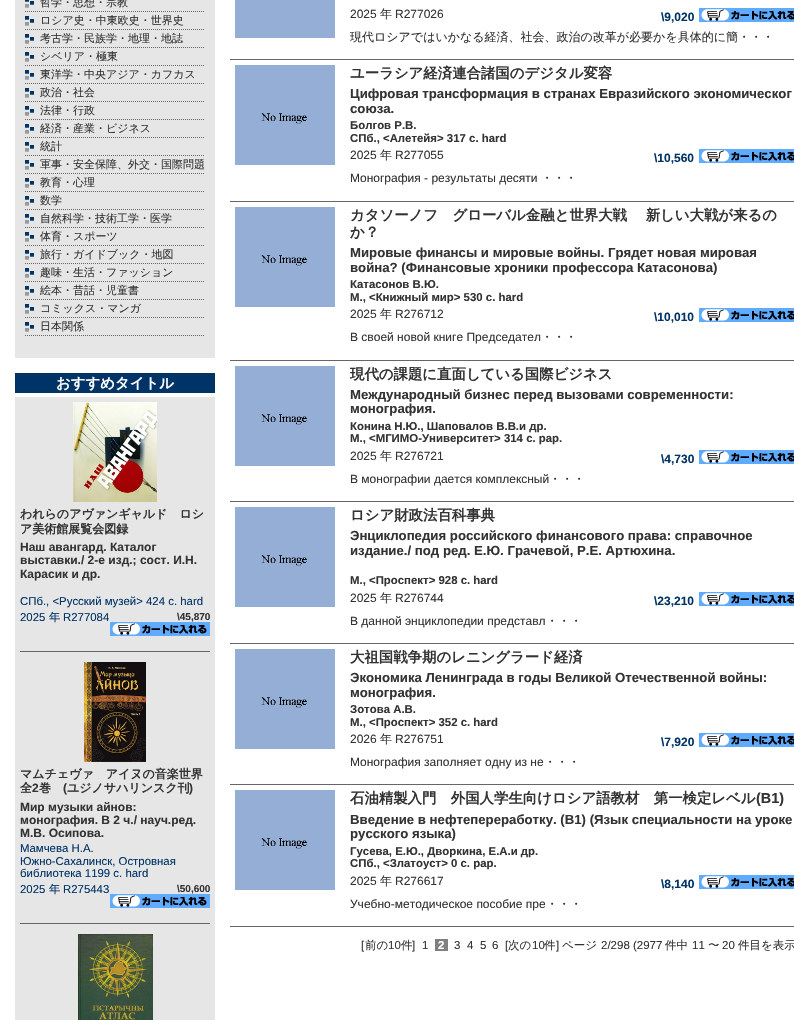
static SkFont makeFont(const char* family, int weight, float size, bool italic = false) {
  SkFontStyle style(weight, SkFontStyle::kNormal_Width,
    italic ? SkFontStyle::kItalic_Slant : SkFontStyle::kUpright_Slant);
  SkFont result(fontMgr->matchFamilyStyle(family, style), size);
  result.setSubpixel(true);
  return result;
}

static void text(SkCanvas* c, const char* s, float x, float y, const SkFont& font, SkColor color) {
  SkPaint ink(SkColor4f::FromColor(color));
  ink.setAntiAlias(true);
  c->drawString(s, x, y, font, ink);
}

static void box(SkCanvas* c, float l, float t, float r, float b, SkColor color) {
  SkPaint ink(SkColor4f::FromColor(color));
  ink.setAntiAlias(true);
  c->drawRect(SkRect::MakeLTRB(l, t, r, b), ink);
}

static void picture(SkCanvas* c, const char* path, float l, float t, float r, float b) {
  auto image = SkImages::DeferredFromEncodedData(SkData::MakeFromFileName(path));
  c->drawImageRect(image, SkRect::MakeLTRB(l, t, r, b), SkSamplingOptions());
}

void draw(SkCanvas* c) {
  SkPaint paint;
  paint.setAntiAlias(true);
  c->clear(0xffffffff);
  box(c, 15, 0, 215, 358, 0xffe6e6e6);
  picture(c, "img_01.png", 25, 0, 34, 8);
  paint.setStyle(SkPaint::kStroke_Style);
  paint.setStrokeWidth(1);
  paint.setColor(0xff666666);
  paint.setPathEffect(SkDashPathEffect::Make({{1, 1}}, 0));
  c->drawPath(SkPathBuilder().moveTo(25, 11.5f).lineTo(205, 11.5f).detach(), paint);
  paint.setPathEffect(nullptr);
  SkFont face1 = makeFont("WenQuanYi Zen Hei", 500, 11);
  text(c, "哲学・思想・宗教", 40, 6, face1, 0xff333333);
  picture(c, "img_02.png", 25, 16, 34, 26);
  paint.setPathEffect(SkDashPathEffect::Make({{1, 1}}, 0));
  c->drawPath(SkPathBuilder().moveTo(25, 29.5f).lineTo(205, 29.5f).detach(), paint);
  paint.setPathEffect(nullptr);
  text(c, "ロシア史・中東欧史・世界史", 40, 24, face1, 0xff333333);
  picture(c, "img_02.png", 25, 34, 34, 44);
  paint.setPathEffect(SkDashPathEffect::Make({{1, 1}}, 0));
  c->drawPath(SkPathBuilder().moveTo(25, 47.5f).lineTo(205, 47.5f).detach(), paint);
  paint.setPathEffect(nullptr);
  text(c, "考古学・民族学・地理・地誌", 40, 42, face1, 0xff333333);
  picture(c, "img_02.png", 25, 52, 34, 62);
  paint.setPathEffect(SkDashPathEffect::Make({{1, 1}}, 0));
  c->drawPath(SkPathBuilder().moveTo(25, 65.5f).lineTo(205, 65.5f).detach(), paint);
  paint.setPathEffect(nullptr);
  text(c, "シベリア・極東", 40, 60, face1, 0xff333333);
  picture(c, "img_02.png", 25, 70, 34, 80);
  paint.setPathEffect(SkDashPathEffect::Make({{1, 1}}, 0));
  c->drawPath(SkPathBuilder().moveTo(25, 83.5f).lineTo(205, 83.5f).detach(), paint);
  paint.setPathEffect(nullptr);
  text(c, "東洋学・中央アジア・カフカス", 40, 78, face1, 0xff333333);
  picture(c, "img_02.png", 25, 88, 34, 98);
  paint.setPathEffect(SkDashPathEffect::Make({{1, 1}}, 0));
  c->drawPath(SkPathBuilder().moveTo(25, 101.5f).lineTo(205, 101.5f).detach(), paint);
  paint.setPathEffect(nullptr);
  text(c, "政治・社会", 40, 96, face1, 0xff333333);
  picture(c, "img_02.png", 25, 106, 34, 116);
  paint.setPathEffect(SkDashPathEffect::Make({{1, 1}}, 0));
  c->drawPath(SkPathBuilder().moveTo(25, 119.5f).lineTo(205, 119.5f).detach(), paint);
  paint.setPathEffect(nullptr);
  text(c, "法律・行政", 40, 114, face1, 0xff333333);
  picture(c, "img_02.png", 25, 124, 34, 134);
  paint.setPathEffect(SkDashPathEffect::Make({{1, 1}}, 0));
  c->drawPath(SkPathBuilder().moveTo(25, 137.5f).lineTo(205, 137.5f).detach(), paint);
  paint.setPathEffect(nullptr);
  text(c, "経済・産業・ビジネス", 40, 132, face1, 0xff333333);
  picture(c, "img_02.png", 25, 142, 34, 152);
  paint.setPathEffect(SkDashPathEffect::Make({{1, 1}}, 0));
  c->drawPath(SkPathBuilder().moveTo(25, 155.5f).lineTo(205, 155.5f).detach(), paint);
  paint.setPathEffect(nullptr);
  text(c, "統計", 40, 150, face1, 0xff333333);
  picture(c, "img_02.png", 25, 160, 34, 170);
  paint.setPathEffect(SkDashPathEffect::Make({{1, 1}}, 0));
  c->drawPath(SkPathBuilder().moveTo(25, 173.5f).lineTo(205, 173.5f).detach(), paint);
  paint.setPathEffect(nullptr);
  text(c, "軍事・安全保障、外交・国際問題", 40, 168, face1, 0xff333333);
  picture(c, "img_02.png", 25, 178, 34, 188);
  paint.setPathEffect(SkDashPathEffect::Make({{1, 1}}, 0));
  c->drawPath(SkPathBuilder().moveTo(25, 191.5f).lineTo(205, 191.5f).detach(), paint);
  paint.setPathEffect(nullptr);
  text(c, "教育・心理", 40, 186, face1, 0xff333333);
  picture(c, "img_02.png", 25, 196, 34, 206);
  paint.setPathEffect(SkDashPathEffect::Make({{1, 1}}, 0));
  c->drawPath(SkPathBuilder().moveTo(25, 209.5f).lineTo(205, 209.5f).detach(), paint);
  paint.setPathEffect(nullptr);
  text(c, "数学", 40, 204, face1, 0xff333333);
  picture(c, "img_02.png", 25, 214, 34, 224);
  paint.setPathEffect(SkDashPathEffect::Make({{1, 1}}, 0));
  c->drawPath(SkPathBuilder().moveTo(25, 227.5f).lineTo(205, 227.5f).detach(), paint);
  paint.setPathEffect(nullptr);
  text(c, "自然科学・技術工学・医学", 40, 222, face1, 0xff333333);
  picture(c, "img_02.png", 25, 232, 34, 242);
  paint.setPathEffect(SkDashPathEffect::Make({{1, 1}}, 0));
  c->drawPath(SkPathBuilder().moveTo(25, 245.5f).lineTo(205, 245.5f).detach(), paint);
  paint.setPathEffect(nullptr);
  text(c, "体育・スポーツ", 40, 240, face1, 0xff333333);
  picture(c, "img_02.png", 25, 250, 34, 260);
  paint.setPathEffect(SkDashPathEffect::Make({{1, 1}}, 0));
  c->drawPath(SkPathBuilder().moveTo(25, 263.5f).lineTo(205, 263.5f).detach(), paint);
  paint.setPathEffect(nullptr);
  text(c, "旅行・ガイドブック・地図", 40, 258, face1, 0xff333333);
  picture(c, "img_02.png", 25, 268, 34, 278);
  paint.setPathEffect(SkDashPathEffect::Make({{1, 1}}, 0));
  c->drawPath(SkPathBuilder().moveTo(25, 281.5f).lineTo(205, 281.5f).detach(), paint);
  paint.setPathEffect(nullptr);
  text(c, "趣味・生活・ファッション", 40, 276, face1, 0xff333333);
  picture(c, "img_02.png", 25, 286, 34, 296);
  paint.setPathEffect(SkDashPathEffect::Make({{1, 1}}, 0));
  c->drawPath(SkPathBuilder().moveTo(25, 299.5f).lineTo(205, 299.5f).detach(), paint);
  paint.setPathEffect(nullptr);
  text(c, "絵本・昔話・児童書", 40, 294, face1, 0xff333333);
  picture(c, "img_02.png", 25, 304, 34, 314);
  paint.setPathEffect(SkDashPathEffect::Make({{1, 1}}, 0));
  c->drawPath(SkPathBuilder().moveTo(25, 317.5f).lineTo(205, 317.5f).detach(), paint);
  paint.setPathEffect(nullptr);
  text(c, "コミックス・マンガ", 40, 312, face1, 0xff333333);
  picture(c, "img_02.png", 25, 322, 34, 332);
  paint.setPathEffect(SkDashPathEffect::Make({{1, 1}}, 0));
  c->drawPath(SkPathBuilder().moveTo(25, 335.5f).lineTo(205, 335.5f).detach(), paint);
  paint.setPathEffect(nullptr);
  text(c, "日本関係", 40, 330, face1, 0xff333333);
  box(c, 15, 373, 215, 393, 0xff003366);
  SkFont face2 = makeFont("WenQuanYi Zen Hei", 700, 14.4f);
  text(c, "おすすめタイトル", 56, 388, face2, 0xffffffff);
  box(c, 15, 397, 215, 1020, 0xffe6e6e6);
  box(c, 20, 651, 210, 652, 0xff666666);
  picture(c, "img_03.png", 73, 402, 157, 502);
  SkFont face3 = makeFont("WenQuanYi Zen Hei", 700, 12);
  text(c, "われらのアヴァンギャルド　ロシ", 20, 518, face3, 0xff333333);
  text(c, "ア美術館展覧会図録", 20, 533, face3, 0xff333333);
  SkFont face4 = makeFont("Liberation Sans", 700, 12);
  text(c, "Наш авангард. Каталог", 20, 551, face4, 0xff333333);
  text(c, "выставки./ 2-е изд.; сост. И.Н.", 20, 564, face4, 0xff333333);
  text(c, "Карасик и др.", 20, 578, face4, 0xff333333);
  SkFont face5 = makeFont("Liberation Sans", 400, 11.4f);
  text(c, "СПб., <Русский музей> 424 c. hard", 20, 605, face5, 0xff003366);
  text(c, "2025", 20, 621, face5, 0xff003366);
  SkFont face6 = makeFont("WenQuanYi Zen Hei", 500, 11.4f);
  text(c, "年", 49, 621, face6, 0xff003366);
  text(c, "R277084", 63, 621, face5, 0xff003366);
  SkFont face7 = makeFont("Liberation Sans", 700, 10);
  text(c, "\\45,870", 177, 620, face7, 0xff333333);
  picture(c, "img_04.png", 110, 622, 210, 636);
  box(c, 20, 923, 210, 924, 0xff666666);
  picture(c, "img_05.png", 84, 662, 146, 762);
  text(c, "マムチェヴァ　アイヌの音楽世界", 20, 778, face3, 0xff333333);
  text(c, "全", 20, 792, face3, 0xff333333);
  text(c, "2", 32, 792, face4, 0xff333333);
  text(c, "巻", 39, 792, face3, 0xff333333);
  text(c, "(", 63, 792, face4, 0xff333333);
  text(c, "ユジノサハリンスク刊", 67, 792, face3, 0xff333333);
  text(c, ")", 189, 792, face4, 0xff333333);
  text(c, "Мир музыки айнов:", 20, 811, face4, 0xff333333);
  text(c, "монография. В 2 ч./ науч.ред.", 20, 824, face4, 0xff333333);
  text(c, "М.В. Осипова.", 20, 837, face4, 0xff333333);
  text(c, "Мамчева Н.А.", 20, 852, face5, 0xff003366);
  text(c, "Южно-Сахалинск, Островная", 20, 865, face5, 0xff003366);
  text(c, "библиотека 1199 c. hard", 20, 877, face5, 0xff003366);
  text(c, "2025", 20, 893, face5, 0xff003366);
  text(c, "年", 49, 893, face6, 0xff003366);
  text(c, "R275443", 63, 893, face5, 0xff003366);
  text(c, "\\50,600", 177, 892, face7, 0xff333333);
  picture(c, "img_04.png", 110, 894, 210, 908);
  picture(c, "img_06.png", 78, 934, 153, 1020);
  box(c, 230, 59, 794, 60, 0xff666666);
  box(c, 235, 0, 335, 38, 0xff94aed6);
  SkFont face8 = makeFont("Liberation Sans", 400, 12);
  text(c, "2025", 350, 18, face8, 0xff333333);
  SkFont face9 = makeFont("WenQuanYi Zen Hei", 500, 12);
  text(c, "年", 380, 18, face9, 0xff333333);
  text(c, "R277026", 395, 18, face8, 0xff333333);
  text(c, "\\9,020", 661, 21, face4, 0xff003366);
  picture(c, "img_07.png", 699, 8, 794, 22);
  text(c, "現代ロシアではいかなる経済、社会、政治の改革が必要かを具体的に簡・・・", 350, 41, face9, 0xff333333);
  box(c, 230, 201, 794, 202, 0xff666666);
  picture(c, "img_08.png", 235, 65, 335, 165);
  text(c, "ユーラシア経済連合諸国のデジタル変容", 350, 78, face2, 0xff333333);
  SkFont face10 = makeFont("Liberation Sans", 700, 13.2f);
  text(c, "Цифровая трансформация в странах Евразийского экономическог", 350, 98, face10, 0xff333333);
  text(c, "союза.", 350, 113, face10, 0xff333333);
  SkFont face11 = makeFont("Liberation Sans", 700, 11.4f);
  text(c, "Болгов Р.В.", 350, 129, face11, 0xff333333);
  text(c, "СПб., <Алетейя> 317 c. hard", 350, 142, face11, 0xff333333);
  text(c, "2025", 350, 159, face8, 0xff333333);
  text(c, "年", 380, 159, face9, 0xff333333);
  text(c, "R277055", 395, 159, face8, 0xff333333);
  text(c, "\\10,560", 654, 162, face4, 0xff003366);
  picture(c, "img_07.png", 699, 149, 794, 163);
  text(c, "Монография - результаты десяти", 350, 182, face8, 0xff333333);
  text(c, "・・・", 541, 182, face9, 0xff333333);
  box(c, 230, 360, 794, 361, 0xff666666);
  picture(c, "img_09.png", 235, 207, 335, 307);
  text(c, "カタソーノフ　グローバル金融と世界大戦　 新しい大戦が来るの", 350, 220, face2, 0xff333333);
  text(c, "か？", 350, 237, face2, 0xff333333);
  text(c, "Мировые финансы и мировые войны. Грядет новая мировая", 350, 257, face10, 0xff333333);
  text(c, "война? (Финансовые хроники профессора Катасонова)", 350, 272, face10, 0xff333333);
  text(c, "Катасонов В.Ю.", 350, 288, face11, 0xff333333);
  text(c, "М., <Книжный мир> 530 c. hard", 350, 301, face11, 0xff333333);
  text(c, "2025", 350, 318, face8, 0xff333333);
  text(c, "年", 380, 318, face9, 0xff333333);
  text(c, "R276712", 395, 318, face8, 0xff333333);
  text(c, "\\10,010", 654, 321, face4, 0xff003366);
  picture(c, "img_07.png", 699, 308, 794, 322);
  text(c, "В своей новой книге Председател", 350, 341, face8, 0xff333333);
  text(c, "・・・", 541, 341, face9, 0xff333333);
  box(c, 230, 501, 794, 502, 0xff666666);
  picture(c, "img_10.png", 235, 366, 335, 466);
  text(c, "現代の課題に直面している国際ビジネス", 350, 379, face2, 0xff333333);
  text(c, "Международный бизнес перед вызовами современности:", 350, 399, face10, 0xff333333);
  text(c, "монография.", 350, 413, face10, 0xff333333);
  text(c, "Конина Н.Ю., Шаповалов В.В.и др.", 350, 430, face11, 0xff333333);
  text(c, "М., <МГИМО-Университет> 314 c. pap.", 350, 442, face11, 0xff333333);
  text(c, "2025", 350, 460, face8, 0xff333333);
  text(c, "年", 380, 460, face9, 0xff333333);
  text(c, "R276721", 395, 460, face8, 0xff333333);
  text(c, "\\4,730", 661, 463, face4, 0xff003366);
  picture(c, "img_07.png", 699, 450, 794, 464);
  text(c, "В монографии дается комплексный", 350, 483, face8, 0xff333333);
  text(c, "・・・", 549, 483, face9, 0xff333333);
  box(c, 230, 643, 794, 644, 0xff666666);
  picture(c, "img_10.png", 235, 507, 335, 607);
  text(c, "ロシア財政法百科事典", 350, 520, face2, 0xff333333);
  text(c, "Энциклопедия российского финансового права: справочное", 350, 540, face10, 0xff333333);
  text(c, "издание./ под ред. Е.Ю. Грачевой, Р.Е. Артюхина.", 350, 555, face10, 0xff333333);
  text(c, "М., <Проспект> 928 c. hard", 350, 584, face11, 0xff333333);
  text(c, "2025", 350, 602, face8, 0xff333333);
  text(c, "年", 380, 602, face9, 0xff333333);
  text(c, "R276744", 395, 602, face8, 0xff333333);
  text(c, "\\23,210", 654, 605, face4, 0xff003366);
  picture(c, "img_07.png", 699, 592, 794, 606);
  text(c, "В данной энциклопедии представл", 350, 625, face8, 0xff333333);
  text(c, "・・・", 546, 625, face9, 0xff333333);
  box(c, 230, 784, 794, 785, 0xff666666);
  picture(c, "img_10.png", 235, 649, 335, 749);
  text(c, "大祖国戦争期のレニングラード経済", 350, 662, face2, 0xff333333);
  text(c, "Экономика Ленинграда в годы Великой Отечественной войны:", 350, 682, face10, 0xff333333);
  text(c, "монография.", 350, 697, face10, 0xff333333);
  text(c, "Зотова А.В.", 350, 713, face11, 0xff333333);
  text(c, "М., <Проспект> 352 c. hard", 350, 726, face11, 0xff333333);
  text(c, "2026", 350, 743, face8, 0xff333333);
  text(c, "年", 380, 743, face9, 0xff333333);
  text(c, "R276751", 395, 743, face8, 0xff333333);
  text(c, "\\7,920", 661, 746, face4, 0xff003366);
  picture(c, "img_07.png", 699, 733, 794, 747);
  text(c, "Монография заполняет одну из не", 350, 766, face8, 0xff333333);
  text(c, "・・・", 544, 766, face9, 0xff333333);
  box(c, 230, 926, 794, 927, 0xff666666);
  picture(c, "img_10.png", 235, 790, 335, 890);
  text(c, "石油精製入門　外国人学生向けロシア語教材　第一検定レベル", 350, 803, face2, 0xff333333);
  SkFont face12 = makeFont("Liberation Sans", 700, 14.4f);
  text(c, "(B1)", 756, 803, face12, 0xff333333);
  text(c, "Введение в нефтепереработку. (B1) (Язык специальности на уроке", 350, 824, face10, 0xff333333);
  text(c, "русского языка)", 350, 838, face10, 0xff333333);
  text(c, "Гусева, Е.Ю., Дворкина, Е.А.и др.", 350, 855, face11, 0xff333333);
  text(c, "СПб., <Златоуст> 0 c. pap.", 350, 867, face11, 0xff333333);
  text(c, "2025", 350, 885, face8, 0xff333333);
  text(c, "年", 380, 885, face9, 0xff333333);
  text(c, "R276617", 395, 885, face8, 0xff333333);
  text(c, "\\8,140", 661, 888, face4, 0xff003366);
  picture(c, "img_07.png", 699, 875, 794, 889);
  text(c, "Учебно-методическое пособие пре", 350, 908, face8, 0xff333333);
  text(c, "・・・", 546, 908, face9, 0xff333333);
  SkFont face13 = makeFont("Liberation Sans", 400, 11.5f);
  text(c, "[", 361, 949, face13, 0xff333333);
  SkFont face14 = makeFont("WenQuanYi Zen Hei", 500, 11.5f);
  text(c, "前の", 365, 949, face14, 0xff333333);
  text(c, "10", 388, 949, face13, 0xff333333);
  text(c, "件", 401, 949, face14, 0xff333333);
  text(c, "]", 412, 949, face13, 0xff333333);
  text(c, "1", 422, 949, face13, 0xff333333);
  box(c, 435, 939, 448, 951, 0xff808080);
  SkFont face15 = makeFont("Liberation Sans", 700, 11.5f);
  text(c, "2", 438, 949, face15, 0xffffffff);
  text(c, "3", 454, 949, face13, 0xff333333);
  text(c, "4", 467, 949, face13, 0xff333333);
  text(c, "5", 480, 949, face13, 0xff333333);
  text(c, "6", 492, 949, face13, 0xff333333);
  text(c, "[", 505, 949, face13, 0xff333333);
  text(c, "次の", 508, 949, face14, 0xff333333);
  text(c, "10", 532, 949, face13, 0xff333333);
  text(c, "件", 544, 949, face14, 0xff333333);
  text(c, "]", 556, 949, face13, 0xff333333);
  text(c, "ページ", 562, 949, face14, 0xff333333);
  text(c, "2/298 (2977", 601, 949, face13, 0xff333333);
  text(c, "件中", 665, 949, face14, 0xff333333);
  text(c, "11", 692, 949, face13, 0xff333333);
  text(c, "〜", 708, 949, face14, 0xff333333);
  text(c, "20", 722, 949, face13, 0xff333333);
  text(c, "件目を表示", 738, 949, face14, 0xff333333);
}
